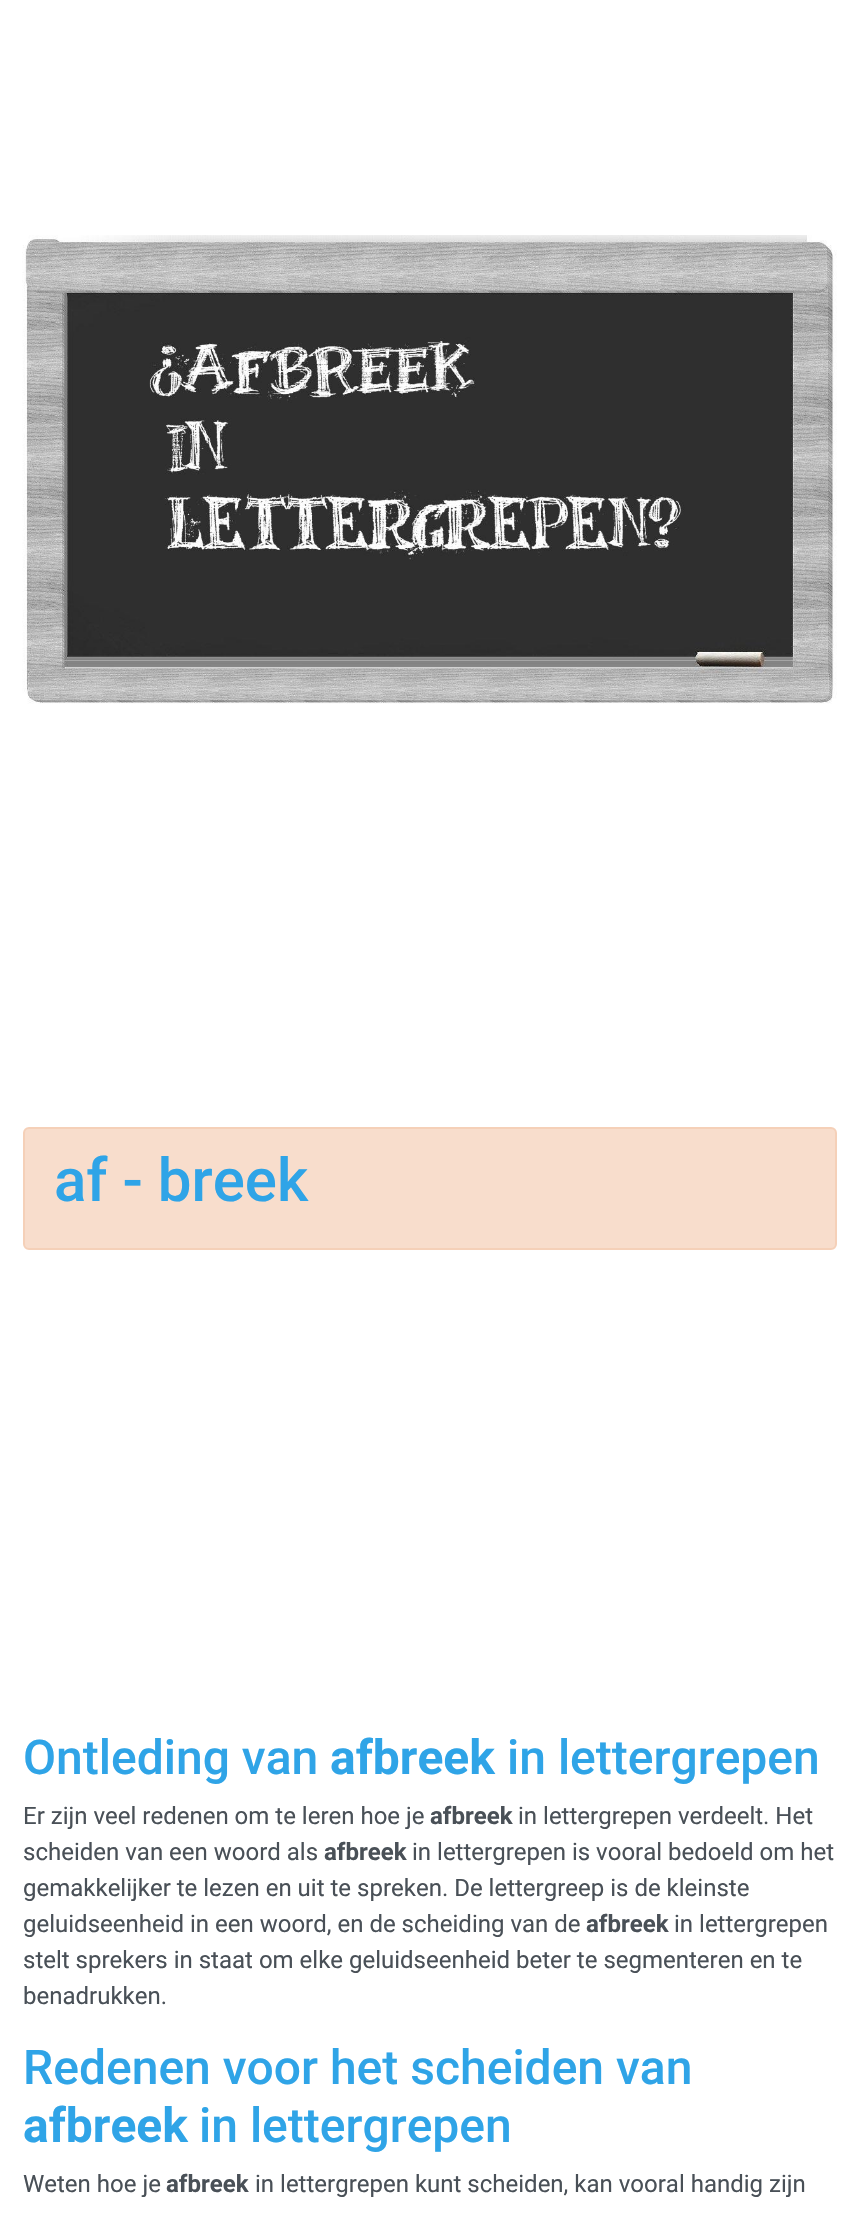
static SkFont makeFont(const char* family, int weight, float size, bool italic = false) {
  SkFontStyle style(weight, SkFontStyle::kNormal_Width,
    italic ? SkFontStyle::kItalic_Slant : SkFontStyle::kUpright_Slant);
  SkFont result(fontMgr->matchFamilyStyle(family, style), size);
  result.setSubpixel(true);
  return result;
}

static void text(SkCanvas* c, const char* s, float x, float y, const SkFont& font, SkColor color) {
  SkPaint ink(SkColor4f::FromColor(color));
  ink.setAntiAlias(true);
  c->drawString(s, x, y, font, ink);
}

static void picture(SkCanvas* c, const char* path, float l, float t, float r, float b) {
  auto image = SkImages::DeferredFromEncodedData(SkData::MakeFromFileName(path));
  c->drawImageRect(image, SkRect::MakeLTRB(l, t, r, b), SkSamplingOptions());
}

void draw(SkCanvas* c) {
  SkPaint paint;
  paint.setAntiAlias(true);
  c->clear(0xffffffff);
  picture(c, "img_01.png", 22, 235, 837, 704);
  paint.setColor(0xfff8ddcc);
  c->drawRoundRect(SkRect::MakeLTRB(24, 1128, 836, 1249), 5, 5, paint);
  paint.setStyle(SkPaint::kStroke_Style);
  paint.setStrokeWidth(2);
  paint.setColor(0xfff5d0b8);
  c->drawRoundRect(SkRect::MakeLTRB(24, 1128, 836, 1249), 5, 5, paint);
  SkFont face1 = makeFont("Roboto", 500, 60);
  text(c, "af - breek", 54, 1201, face1, 0xff2fa4e7);
  SkFont face2 = makeFont("Roboto", 500, 48);
  text(c, "Ontleding van", 23, 1774, face2, 0xff2fa4e7);
  SkFont face3 = makeFont("Roboto", 700, 48);
  text(c, "afbreek", 330, 1774, face3, 0xff2fa4e7);
  text(c, "in lettergrepen", 507, 1774, face2, 0xff2fa4e7);
  SkFont face4 = makeFont("Roboto", 400, 24);
  text(c, "Er zijn veel redenen om te leren hoe je", 23, 1824, face4, 0xff495057);
  SkFont face5 = makeFont("Roboto", 700, 24);
  text(c, "afbreek", 430, 1824, face5, 0xff495057);
  text(c, "in lettergrepen verdeelt. Het", 518, 1824, face4, 0xff495057);
  text(c, "scheiden van een woord als", 23, 1860, face4, 0xff495057);
  text(c, "afbreek", 324, 1860, face5, 0xff495057);
  text(c, "in lettergrepen is vooral bedoeld om het", 412, 1860, face4, 0xff495057);
  text(c, "gemakkelijker te lezen en uit te spreken. De lettergreep is de kleinste", 23, 1896, face4, 0xff495057);
  text(c, "geluidseenheid in een woord, en de scheiding van de", 23, 1932, face4, 0xff495057);
  text(c, "afbreek", 586, 1932, face5, 0xff495057);
  text(c, "in lettergrepen", 674, 1932, face4, 0xff495057);
  text(c, "stelt sprekers in staat om elke geluidseenheid beter te segmenteren en te", 23, 1968, face4, 0xff495057);
  text(c, "benadrukken.", 23, 2004, face4, 0xff495057);
  text(c, "Redenen voor het scheiden van", 23, 2084, face2, 0xff2fa4e7);
  text(c, "afbreek", 23, 2142, face3, 0xff2fa4e7);
  text(c, "in lettergrepen", 199, 2142, face2, 0xff2fa4e7);
  text(c, "Weten hoe je", 23, 2192, face4, 0xff495057);
  text(c, "afbreek", 166, 2192, face5, 0xff495057);
  text(c, "in lettergrepen kunt scheiden, kan vooral handig zijn", 255, 2192, face4, 0xff495057);
}
